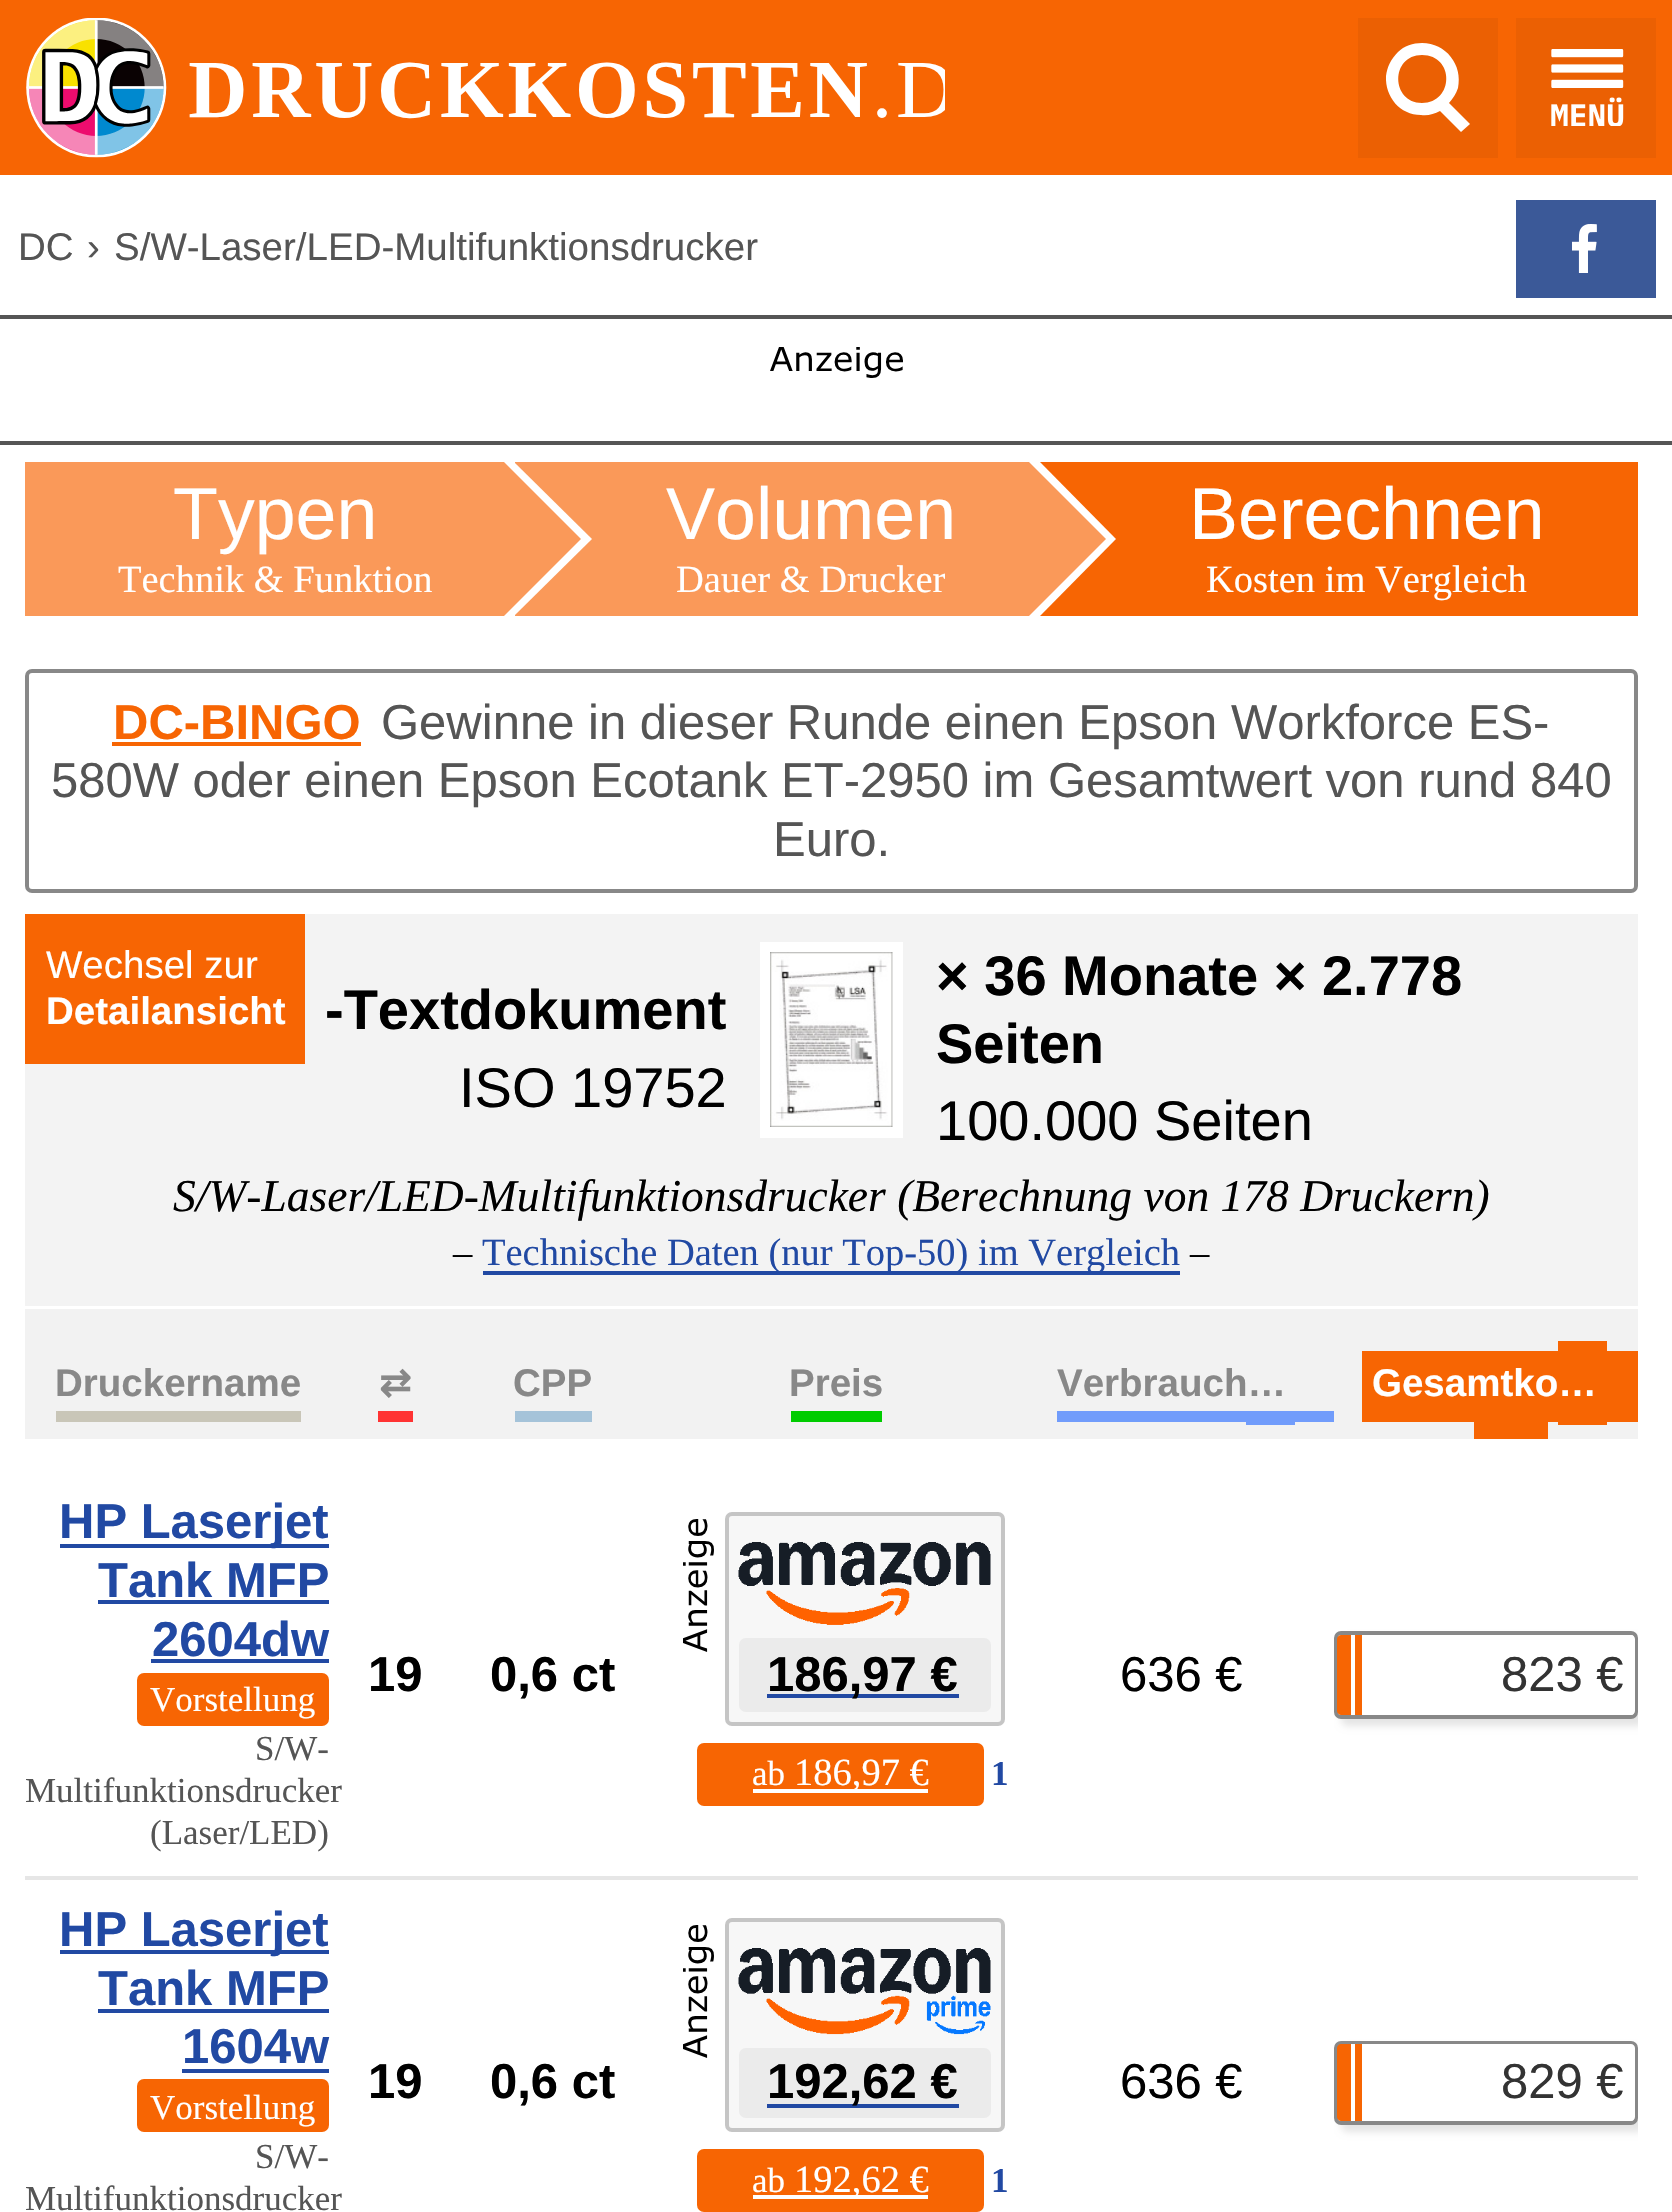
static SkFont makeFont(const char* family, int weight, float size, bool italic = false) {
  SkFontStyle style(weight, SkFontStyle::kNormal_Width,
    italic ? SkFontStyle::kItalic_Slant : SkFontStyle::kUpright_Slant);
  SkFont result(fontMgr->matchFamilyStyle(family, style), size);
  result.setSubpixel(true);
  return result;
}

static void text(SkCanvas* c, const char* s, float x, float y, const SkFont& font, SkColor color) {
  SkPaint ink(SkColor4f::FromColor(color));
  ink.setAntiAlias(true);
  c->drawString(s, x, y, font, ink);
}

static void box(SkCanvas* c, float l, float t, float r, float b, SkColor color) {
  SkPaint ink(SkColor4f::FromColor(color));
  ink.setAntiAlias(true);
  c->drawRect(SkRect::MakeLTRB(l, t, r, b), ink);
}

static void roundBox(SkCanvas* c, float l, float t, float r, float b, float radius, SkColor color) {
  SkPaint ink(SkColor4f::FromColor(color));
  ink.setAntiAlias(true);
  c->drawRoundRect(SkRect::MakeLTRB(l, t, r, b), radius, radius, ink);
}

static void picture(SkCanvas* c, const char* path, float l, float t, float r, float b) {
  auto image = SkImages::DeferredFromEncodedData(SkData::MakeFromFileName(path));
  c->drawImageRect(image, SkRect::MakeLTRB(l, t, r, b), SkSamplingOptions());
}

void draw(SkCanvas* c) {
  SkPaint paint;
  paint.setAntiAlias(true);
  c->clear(0xffffffff);
  box(c, 0, 0, 1672, 175, 0xfff76503);
  picture(c, "img_01.png", 26, 18, 945, 158);
  box(c, 1358, 18, 1498, 158, 0xffeb6003);
  paint.setColor(0xffffffff);
  c->drawPath(SkPathBuilder().moveTo(1422, 43).cubicTo(1413, 43, 1404, 46, 1398, 52).cubicTo(1391, 59, 1387, 67, 1386, 76).cubicTo(1385, 97, 1400, 115, 1421, 115).cubicTo(1428, 116, 1434, 114, 1440, 111).lineTo(1461, 132).lineTo(1470, 124).lineTo(1449, 103).cubicTo(1453, 98, 1456, 94, 1458, 88).cubicTo(1463, 65, 1446, 43, 1422, 43).close().moveTo(1422, 55).cubicTo(1455, 55, 1454, 103, 1422, 103).cubicTo(1391, 103, 1390, 55, 1422, 55).close().detach(), paint);
  box(c, 1516, 18, 1656, 158, 0xffeb6003);
  picture(c, "img_02.png", 1551, 49, 1624, 126);
  SkFont face1 = makeFont("Liberation Sans", 400, 38.5f);
  text(c, "DC", 18, 260, face1, 0xff555555);
  text(c, "›", 87, 260, face1, 0xff555555);
  text(c, "S/W-Laser/LED-Multifunktionsdrucker", 114, 260, face1, 0xff555555);
  box(c, 1516, 200, 1656, 298, 0xff3b5998);
  picture(c, "img_03.png", 1572, 224, 1597, 273);
  box(c, 0, 315, 1672, 319, 0xff555555);
  box(c, 0, 441, 1672, 445, 0xff555555);
  picture(c, "img_04.png", 770, 347, 903, 378);
  box(c, 25, 462, 504, 616, 0xfffa9959);
  SkFont face2 = makeFont("Liberation Sans", 400, 73.5f);
  text(c, "Typen", 173, 539, face2, 0xffffffff);
  box(c, 515, 462, 1029, 616, 0xfffa9959);
  c->drawPath(SkPathBuilder().moveTo(514, 616).lineTo(514, 462).lineTo(592, 539).close().detach(), paint);
  paint.setColor(0xfffa9959);
  c->drawPath(SkPathBuilder().moveTo(504, 616).lineTo(504, 462).lineTo(581, 539).close().detach(), paint);
  SkFont face3 = makeFont("Liberation Serif", 400, 38.5f);
  text(c, "Technik & Funktion", 118, 592, face3, 0xffffffff);
  text(c, "Volumen", 666, 539, face2, 0xffffffff);
  box(c, 1040, 462, 1638, 616, 0xfff76503);
  paint.setColor(0xffffffff);
  c->drawPath(SkPathBuilder().moveTo(1040, 616).lineTo(1040, 462).lineTo(1116, 539).close().detach(), paint);
  paint.setColor(0xfffa9959);
  c->drawPath(SkPathBuilder().moveTo(1029, 616).lineTo(1029, 462).lineTo(1106, 539).close().detach(), paint);
  text(c, "Dauer & Drucker", 676, 592, face3, 0xffffffff);
  text(c, "Berechnen", 1189, 539, face2, 0xffffffff);
  text(c, "Kosten im Vergleich", 1206, 592, face3, 0xffffffff);
  paint.setStyle(SkPaint::kStroke_Style);
  paint.setStrokeWidth(4);
  paint.setColor(0xff888888);
  c->drawRoundRect(SkRect::MakeLTRB(27, 671, 1636, 891), 5, 5, paint);
  SkFont face4 = makeFont("Liberation Sans", 700, 49);
  text(c, "DC-BINGO", 113, 739, face4, 0xfff76503);
  box(c, 112, 742, 361, 746, 0xfff76503);
  SkFont face5 = makeFont("Liberation Sans", 400, 49);
  text(c, "Gewinne in dieser Runde einen Epson Workforce ES-", 381, 739, face5, 0xff555555);
  text(c, "580W oder einen Epson Ecotank ET-2950 im Gesamtwert von rund 840", 51, 797, face5, 0xff555555);
  text(c, "Euro.", 773, 856, face5, 0xff555555);
  box(c, 25, 914, 1638, 1306, 0xfff3f3f3);
  box(c, 25, 914, 305, 1064, 0xfff76503);
  text(c, "Wechsel zur", 46, 978, face1, 0xffffffff);
  SkFont face6 = makeFont("Liberation Sans", 700, 38.5f);
  text(c, "Detailansicht", 46, 1024, face6, 0xffffffff);
  SkFont face7 = makeFont("Liberation Sans", 700, 56);
  text(c, "-Textdokument", 325, 1029, face7, 0xff000000);
  SkFont face8 = makeFont("Liberation Sans", 400, 56);
  text(c, "ISO 19752", 459, 1107, face8, 0xff000000);
  paint.setStrokeWidth(11);
  paint.setColor(0xffffffff);
  c->drawRect(SkRect::MakeLTRB(765.5f, 947.5f, 897.5f, 1132.5f), paint);
  picture(c, "img_05.png", 770, 952, 893, 1127);
  text(c, "× 36 Monate × 2.778", 936, 995, face7, 0xff000000);
  text(c, "Seiten", 936, 1063, face7, 0xff000000);
  text(c, "100.000 Seiten", 936, 1140, face8, 0xff000000);
  SkFont face9 = makeFont("Liberation Serif", 400, 45.5f, true);
  text(c, "S/W-Laser/LED-Multifunktionsdrucker (Berechnung von 178 Druckern)", 173, 1211, face9, 0xff000000);
  text(c, "–", 453, 1265, face3, 0xff000000);
  box(c, 483, 1271, 1180, 1275, 0xff2149a3);
  text(c, "Technische Daten (nur Top-50) im Vergleich", 482, 1265, face3, 0xff2149a3);
  text(c, "–", 1190, 1265, face3, 0xff000000);
  box(c, 25, 1309, 1638, 1439, 0xfff2f2f2);
  text(c, "Druckername", 55, 1396, face6, 0xff888888);
  box(c, 56, 1411, 301, 1422, 0xffc9c6b8);
  SkFont face10 = makeFont("DejaVu Sans", 700, 38.5f);
  text(c, "⇄", 379, 1396, face10, 0xff888888);
  box(c, 378, 1411, 413, 1422, 0xffff3333);
  text(c, "CPP", 513, 1396, face6, 0xff888888);
  box(c, 515, 1411, 592, 1422, 0xffa5c3d9);
  text(c, "Preis", 789, 1396, face6, 0xff888888);
  box(c, 791, 1411, 882, 1422, 0xff00cc00);
  text(c, "Verbrauch…", 1057, 1396, face6, 0xff888888);
  box(c, 1057, 1411, 1334, 1422, 0xff719cfb);
  box(c, 1246, 1422, 1295, 1425, 0xff719cfb);
  box(c, 1362, 1351, 1638, 1422, 0xfff76503);
  box(c, 1558, 1341, 1607, 1425, 0xfff76503);
  text(c, "Gesamtko…", 1372, 1396, face6, 0xffffffff);
  box(c, 1474, 1422, 1548, 1439, 0xfff76503);
  box(c, 60, 1544, 329, 1548, 0xff2149a3);
  text(c, "HP Laserjet", 59, 1538, face4, 0xff2149a3);
  text(c, "Tank MFP", 98, 1597, face4, 0xff2149a3);
  box(c, 98, 1600, 329, 1604, 0xff2149a3);
  text(c, "2604dw", 152, 1656, face4, 0xff2149a3);
  box(c, 151, 1659, 329, 1663, 0xff2149a3);
  roundBox(c, 137, 1673, 329, 1726, 7, 0xfff76503);
  SkFont face11 = makeFont("Liberation Serif", 400, 35);
  text(c, "Vorstellung", 150, 1711, face11, 0xffffffff);
  text(c, "S/W-", 255, 1760, face11, 0xff555555);
  text(c, "Multifunktionsdrucker", 25, 1802, face11, 0xff555555);
  text(c, "(Laser/LED)", 150, 1844, face11, 0xff555555);
  text(c, "19", 368, 1691, face4, 0xff000000);
  text(c, "0,6 ct", 490, 1691, face4, 0xff000000);
  picture(c, "img_06.png", 683, 1519, 714, 1652);
  roundBox(c, 725, 1512, 1005, 1726, 7, 0xfff7f7f7);
  paint.setStrokeWidth(4);
  paint.setColor(0x33000000);
  c->drawRoundRect(SkRect::MakeLTRB(727, 1514, 1003, 1724), 5, 5, paint);
  picture(c, "img_07.png", 738, 1542, 991, 1625);
  roundBox(c, 739, 1638, 991, 1712, 7, 0xffebebeb);
  box(c, 767, 1694, 959, 1698, 0xff2149a3);
  text(c, "186,97 €", 767, 1691, face4, 0xff000000);
  roundBox(c, 697, 1743, 984, 1806, 7, 0xfff76503);
  text(c, "ab", 752, 1785, face11, 0xffffffff);
  box(c, 753, 1789, 928, 1793, 0xffffffff);
  text(c, "186,97 €", 794, 1785, face3, 0xffffffff);
  SkFont face12 = makeFont("Liberation Serif", 700, 35);
  text(c, "1", 991, 1785, face12, 0xff2149a3);
  text(c, "636 €", 1120, 1691, face5, 0xff000000);
  c->save();
  c->clipRect(SkRect::MakeLTRB(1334, 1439, 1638, 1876));
  paint.setStyle(SkPaint::kFill_Style);
  paint.setColor(0x1a000000);
  paint.setMaskFilter(SkMaskFilter::MakeBlur(kNormal_SkBlurStyle, 3.5f));
  c->drawRoundRect(SkRect::MakeLTRB(1341, 1638, 1645, 1726), 7, 7, paint);
  paint.setMaskFilter(nullptr);
  c->restore();
  paint.setStyle(SkPaint::kStroke_Style);
  paint.setColor(0xff888888);
  c->drawRoundRect(SkRect::MakeLTRB(1336, 1633, 1636, 1717), 5, 5, paint);
  paint.setStyle(SkPaint::kFill_Style);
  paint.setColor(0xfff76503);
  c->drawPath(SkPathBuilder().moveTo(1341, 1635).lineTo(1344, 1635).lineTo(1344, 1715).lineTo(1341, 1715).cubicTo(1339, 1715, 1337, 1713, 1337, 1711).lineTo(1337, 1639).cubicTo(1337, 1637, 1339, 1635, 1341, 1635).close().detach(), paint);
  box(c, 1344, 1635, 1362, 1715, 0xfff76503);
  box(c, 1351, 1635, 1355, 1715, 0xffffffff);
  box(c, 1362, 1635, 1365, 1715, 0xffffffff);
  paint.setColor(0xffffffff);
  c->drawPath(SkPathBuilder().moveTo(1365, 1635).lineTo(1631, 1635).cubicTo(1633, 1635, 1635, 1637, 1635, 1639).lineTo(1635, 1711).cubicTo(1635, 1713, 1633, 1715, 1631, 1715).lineTo(1365, 1715).close().detach(), paint);
  text(c, "823 €", 1501, 1691, face5, 0xff333333);
  box(c, 60, 1950, 329, 1954, 0xff2149a3);
  text(c, "HP Laserjet", 59, 1946, face4, 0xff2149a3);
  text(c, "Tank MFP", 98, 2005, face4, 0xff2149a3);
  box(c, 98, 2009, 329, 2013, 0xff2149a3);
  text(c, "1604w", 182, 2063, face4, 0xff2149a3);
  box(c, 182, 2069, 329, 2073, 0xff2149a3);
  roundBox(c, 137, 2079, 329, 2132, 7, 0xfff76503);
  text(c, "Vorstellung", 150, 2119, face11, 0xffffffff);
  text(c, "S/W-", 255, 2168, face11, 0xff555555);
  text(c, "Multifunktionsdrucker", 25, 2210, face11, 0xff555555);
  box(c, 25, 1876, 1638, 1880, 0xffe6e6e6);
  text(c, "19", 368, 2098, face4, 0xff000000);
  text(c, "0,6 ct", 490, 2098, face4, 0xff000000);
  picture(c, "img_08.png", 683, 1925, 714, 2058);
  roundBox(c, 725, 1918, 1005, 2132, 7, 0xfff7f7f7);
  paint.setStyle(SkPaint::kStroke_Style);
  paint.setColor(0x33000000);
  c->drawRoundRect(SkRect::MakeLTRB(727, 1920, 1003, 2130), 5, 5, paint);
  picture(c, "img_09.png", 738, 1948, 991, 2035);
  roundBox(c, 739, 2048, 991, 2118, 7, 0xffebebeb);
  box(c, 767, 2104, 959, 2108, 0xff2149a3);
  text(c, "192,62 €", 767, 2098, face4, 0xff000000);
  roundBox(c, 697, 2149, 984, 2212, 7, 0xfff76503);
  text(c, "ab", 752, 2192, face11, 0xffffffff);
  box(c, 753, 2195, 928, 2199, 0xffffffff);
  text(c, "192,62 €", 794, 2192, face3, 0xffffffff);
  text(c, "1", 991, 2192, face12, 0xff2149a3);
  text(c, "636 €", 1120, 2098, face5, 0xff000000);
  c->save();
  c->clipRect(SkRect::MakeLTRB(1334, 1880, 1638, 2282));
  paint.setStyle(SkPaint::kFill_Style);
  paint.setColor(0x1a000000);
  paint.setMaskFilter(SkMaskFilter::MakeBlur(kNormal_SkBlurStyle, 3.5f));
  c->drawRoundRect(SkRect::MakeLTRB(1341, 2048, 1645, 2132), 7, 7, paint);
  paint.setMaskFilter(nullptr);
  c->restore();
  paint.setStyle(SkPaint::kStroke_Style);
  paint.setColor(0xff888888);
  c->drawRoundRect(SkRect::MakeLTRB(1336, 2043, 1636, 2123), 5, 5, paint);
  paint.setStyle(SkPaint::kFill_Style);
  paint.setColor(0xfff76503);
  c->drawPath(SkPathBuilder().moveTo(1341, 2044).lineTo(1344, 2044).lineTo(1344, 2121).lineTo(1341, 2121).cubicTo(1339, 2121, 1337, 2119, 1337, 2117).lineTo(1337, 2048).cubicTo(1337, 2046, 1339, 2044, 1341, 2044).close().detach(), paint);
  box(c, 1344, 2044, 1362, 2121, 0xfff76503);
  box(c, 1351, 2044, 1355, 2121, 0xffffffff);
  box(c, 1362, 2044, 1365, 2121, 0xffffffff);
  paint.setColor(0xffffffff);
  c->drawPath(SkPathBuilder().moveTo(1365, 2044).lineTo(1631, 2044).cubicTo(1633, 2044, 1635, 2046, 1635, 2048).lineTo(1635, 2117).cubicTo(1635, 2119, 1633, 2121, 1631, 2121).lineTo(1365, 2121).close().detach(), paint);
  text(c, "829 €", 1501, 2098, face5, 0xff333333);
}
